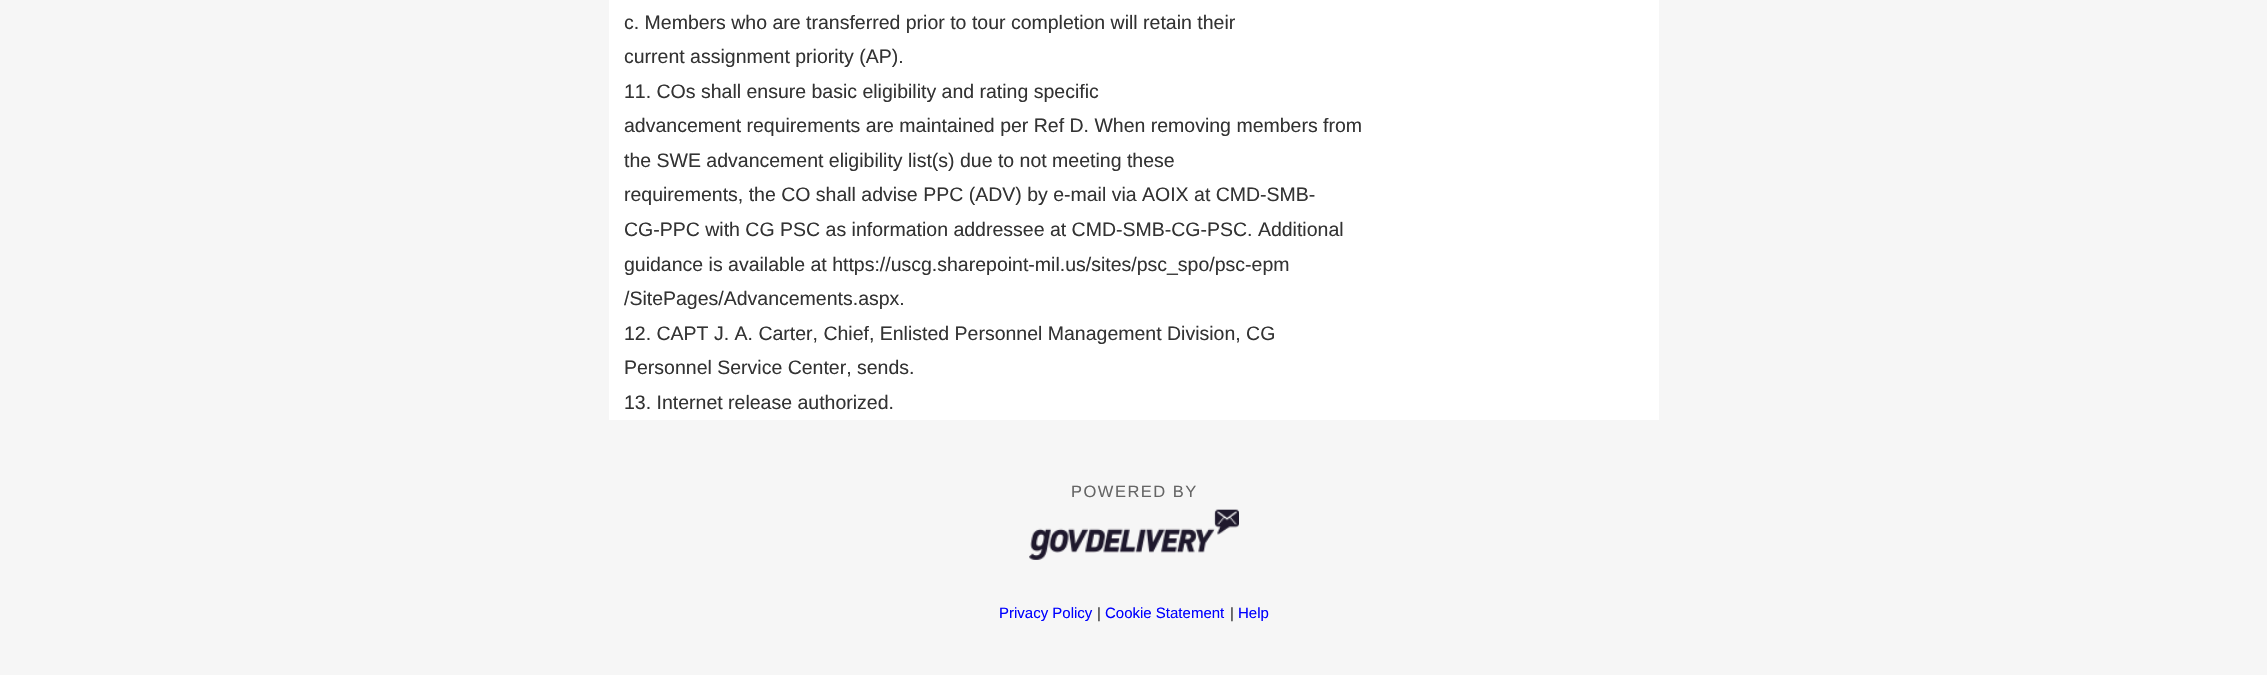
static SkFont makeFont(const char* family, int weight, float size, bool italic = false) {
  SkFontStyle style(weight, SkFontStyle::kNormal_Width,
    italic ? SkFontStyle::kItalic_Slant : SkFontStyle::kUpright_Slant);
  SkFont result(fontMgr->matchFamilyStyle(family, style), size);
  result.setSubpixel(true);
  return result;
}

static void text(SkCanvas* c, const char* s, float x, float y, const SkFont& font, SkColor color) {
  SkPaint ink(SkColor4f::FromColor(color));
  ink.setAntiAlias(true);
  c->drawString(s, x, y, font, ink);
}

static void spacedText(SkCanvas* c, const char* s, float x, float y, const SkFont& font, const SkPaint& ink, float letter, float word) {
  std::vector<SkGlyphID> glyphs(font.countText(s, strlen(s), SkTextEncoding::kUTF8));
  std::vector<float> xs(glyphs.size());
  font.textToGlyphs(s, strlen(s), SkTextEncoding::kUTF8, glyphs);
  font.getXPos(glyphs, xs, x);
  float extra = 0;
  for (size_t i = 0; i < glyphs.size(); i++) {
    xs[i] += extra;
    extra += letter + word * (glyphs[i] == font.unicharToGlyph(' '));
  }
  c->drawTextBlob(SkTextBlob::MakeFromPosHGlyphs(glyphs, xs, y, font), 0, 0, ink);
}

static void box(SkCanvas* c, float l, float t, float r, float b, SkColor color) {
  SkPaint ink(SkColor4f::FromColor(color));
  ink.setAntiAlias(true);
  c->drawRect(SkRect::MakeLTRB(l, t, r, b), ink);
}

static void picture(SkCanvas* c, const char* path, float l, float t, float r, float b) {
  auto image = SkImages::DeferredFromEncodedData(SkData::MakeFromFileName(path));
  c->drawImageRect(image, SkRect::MakeLTRB(l, t, r, b), SkSamplingOptions());
}

void draw(SkCanvas* c) {
  SkPaint paint;
  paint.setAntiAlias(true);
  c->clear(0xfff6f6f6);
  box(c, 609, 0, 1659, 420, 0xffffffff);
  SkFont face1 = makeFont("Liberation Sans", 400, 19.5f);
  text(c, "c. Members who are transferred prior to tour completion will retain their", 624, 29, face1, 0xff333333);
  text(c, "current assignment priority (AP).", 624, 63, face1, 0xff333333);
  text(c, "11. COs shall ensure basic eligibility and rating specific", 624, 98, face1, 0xff333333);
  text(c, "advancement requirements are maintained per Ref D. When removing members from", 624, 132, face1, 0xff333333);
  text(c, "the SWE advancement eligibility list(s) due to not meeting these", 624, 167, face1, 0xff333333);
  text(c, "requirements, the CO shall advise PPC (ADV) by e-mail via AOIX at CMD-SMB-", 624, 201, face1, 0xff333333);
  text(c, "CG-PPC with CG PSC as information addressee at CMD-SMB-CG-PSC. Additional", 624, 236, face1, 0xff333333);
  text(c, "guidance is available at https://uscg.sharepoint-mil.us/sites/psc_spo/psc-epm", 624, 271, face1, 0xff333333);
  text(c, "/SitePages/Advancements.aspx.", 624, 305, face1, 0xff333333);
  text(c, "12. CAPT J. A. Carter, Chief, Enlisted Personnel Management Division, CG", 624, 340, face1, 0xff333333);
  text(c, "Personnel Service Center, sends.", 624, 374, face1, 0xff333333);
  text(c, "13. Internet release authorized.", 624, 409, face1, 0xff333333);
  SkFont face2 = makeFont("Liberation Sans", 400, 16.5f);
  paint.setColor(0xff666666);
  spacedText(c, "POWERED BY", 1071, 497, face2, paint, 1.5f, 0);
  picture(c, "img_01.png", 1029, 509, 1239, 560);
  SkFont face3 = makeFont("Liberation Sans", 400, 15);
  text(c, "Privacy Policy", 999, 618, face3, 0xff0000ff);
  text(c, "|", 1097, 618, face3, 0xff333333);
  text(c, "Cookie Statement", 1105, 618, face3, 0xff0000ff);
  text(c, "|", 1230, 618, face3, 0xff333333);
  text(c, "Help", 1238, 618, face3, 0xff0000ff);
}
